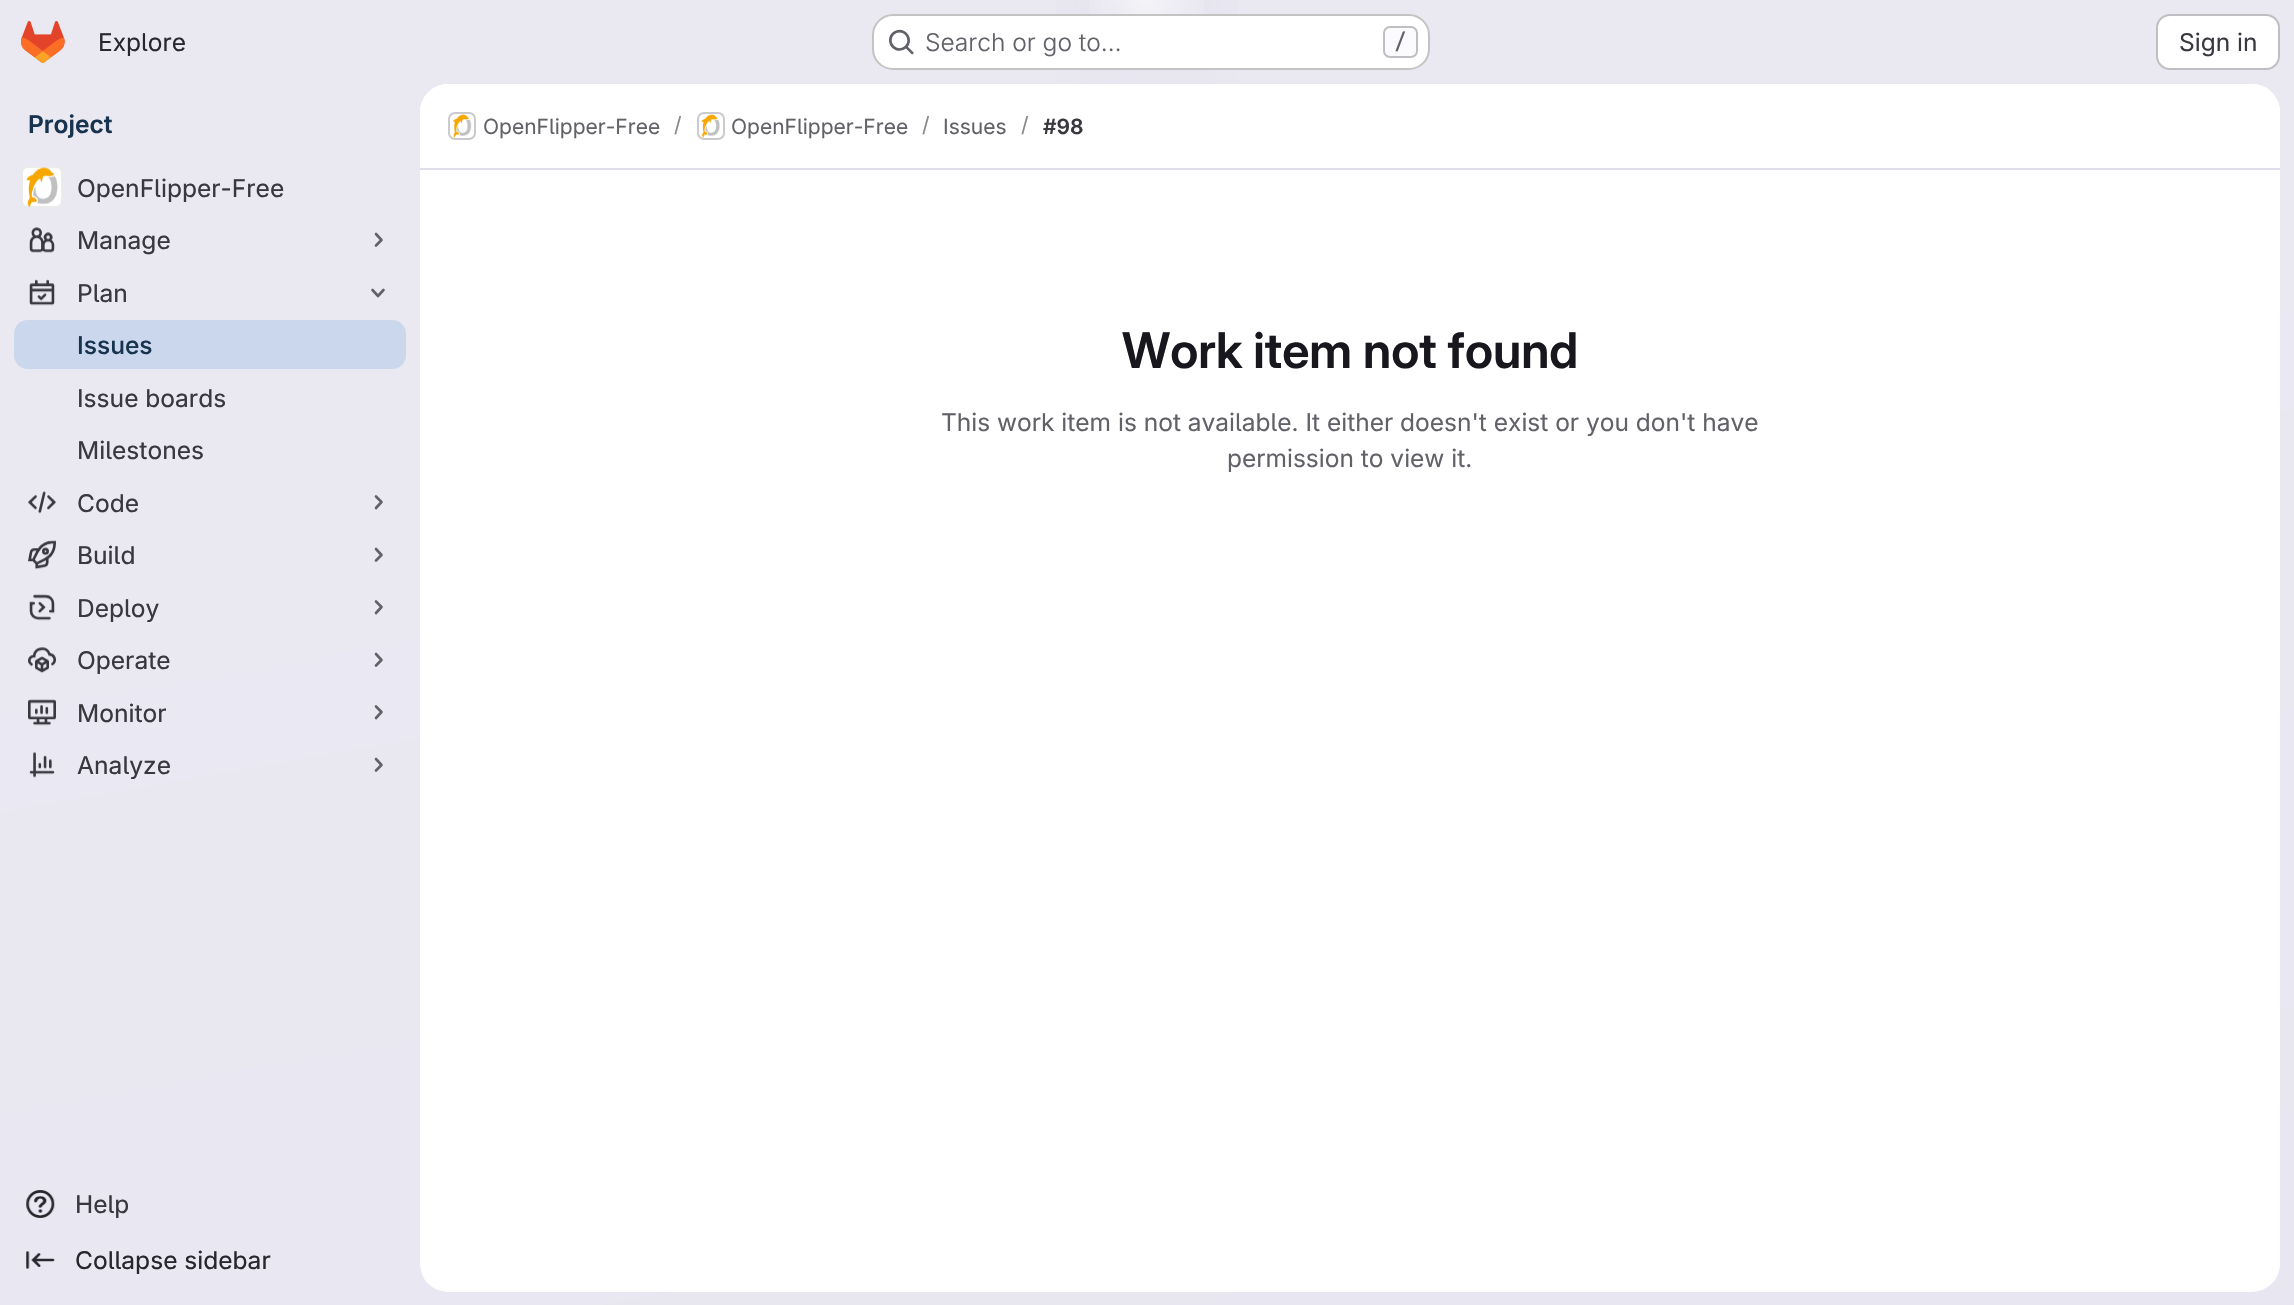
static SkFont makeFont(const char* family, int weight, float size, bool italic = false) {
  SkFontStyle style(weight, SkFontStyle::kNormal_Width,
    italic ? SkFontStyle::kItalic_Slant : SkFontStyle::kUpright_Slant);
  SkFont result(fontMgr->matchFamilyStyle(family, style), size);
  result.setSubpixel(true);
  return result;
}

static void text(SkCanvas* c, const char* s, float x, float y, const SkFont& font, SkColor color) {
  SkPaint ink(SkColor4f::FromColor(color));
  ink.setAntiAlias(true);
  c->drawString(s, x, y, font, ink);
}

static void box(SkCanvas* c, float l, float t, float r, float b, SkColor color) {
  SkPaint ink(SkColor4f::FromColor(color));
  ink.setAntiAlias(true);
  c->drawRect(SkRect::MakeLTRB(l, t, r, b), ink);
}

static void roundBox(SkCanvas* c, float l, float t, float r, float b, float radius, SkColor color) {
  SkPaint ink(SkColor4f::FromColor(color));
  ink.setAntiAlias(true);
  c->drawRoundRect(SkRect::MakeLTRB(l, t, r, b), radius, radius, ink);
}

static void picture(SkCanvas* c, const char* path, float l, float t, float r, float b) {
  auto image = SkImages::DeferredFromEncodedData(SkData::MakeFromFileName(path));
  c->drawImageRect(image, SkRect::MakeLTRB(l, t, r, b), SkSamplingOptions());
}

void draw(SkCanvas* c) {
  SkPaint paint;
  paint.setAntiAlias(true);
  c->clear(0xffffffff);
  {
    const SkColor colors[] = {0xffe8e6f0, 0xffeae9f2};
    const float stops[] = {0, 0.7f};
    const SkPoint ends[] = {{1293, 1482}, {1001, -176}};
    paint.setShader(SkGradientShader::MakeLinear(ends, colors, stops, 2, SkTileMode::kClamp));
    paint.setAlpha(255);
  }
  c->drawRect(SkRect::MakeLTRB(0, 0, 2294, 1305), paint);
  {
    const SkColor colors[] = {0xffe4e2ed, 0x00e4e2ed};
    const float stops[] = {0, 0.11f};
    SkMatrix m = SkMatrix::Translate(1147, 0).preScale(1147, 1306);
    paint.setShader(SkGradientShader::MakeRadial({0, 0}, 1, colors, stops, 2, SkTileMode::kClamp, 0, &m));
    paint.setAlpha(255);
  }
  c->drawRect(SkRect::MakeLTRB(1056, 0, 1238, 84), paint);
  {
    const SkColor colors[] = {0xffe4e2ec, 0x00e4e2ec};
    const float stops[] = {0, 0.08f};
    SkMatrix m = SkMatrix::Translate(1147, 0).preScale(1147, 1306);
    paint.setShader(SkGradientShader::MakeRadial({0, 0}, 1, colors, stops, 2, SkTileMode::kClamp, 0, &m));
    paint.setAlpha(255);
  }
  c->drawRect(SkRect::MakeLTRB(1111, 2, 1171, 42), paint);
  {
    const SkColor colors[] = {0x99ffffff, 0x00ffffff};
    const float stops[] = {0, 0.04f};
    paint.setShader(SkGradientShader::MakeRadial({1147, 0}, 1738, colors, stops, 2, SkTileMode::kClamp));
    paint.setAlpha(255);
  }
  c->drawRect(SkRect::MakeLTRB(1089, 0, 1205, 58), paint);
  picture(c, "img_01.png", 21, 21, 65, 63);
  SkFont face1 = makeFont("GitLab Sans", 400, 24.5f);
  text(c, "Explore", 98, 51, face1, 0xff28272d);
  roundBox(c, 872, 14, 1430, 70, 21, 0xffffffff);
  paint.setStyle(SkPaint::kStroke_Style);
  paint.setStrokeWidth(2);
  paint.setShader(nullptr);
  paint.setColor(0x3d050506);
  c->drawRoundRect(SkRect::MakeLTRB(873, 15, 1429, 69), 20, 20, paint);
  picture(c, "img_02.png", 889, 29, 914, 55);
  SkFont face2 = makeFont("GitLab Sans", 300, 24.5f);
  text(c, "Search or go to…", 925, 51, face2, 0xff626168);
  paint.setStyle(SkPaint::kFill_Style);
  paint.setColor(0xfffbfafd);
  c->drawRoundRect(SkRect::MakeLTRB(1384, 27, 1417, 57), 6, 6, paint);
  paint.setStyle(SkPaint::kStroke_Style);
  paint.setColor(0xffbfbfc3);
  c->drawRoundRect(SkRect::MakeLTRB(1384, 27, 1417, 57), 6, 6, paint);
  SkFont face3 = makeFont("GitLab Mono", 500, 21);
  text(c, "/", 1394, 49, face3, 0xff626168);
  paint.setStyle(SkPaint::kFill_Style);
  paint.setColor(0xffffffff);
  c->drawRoundRect(SkRect::MakeLTRB(2157, 15, 2279, 69), 13, 13, paint);
  paint.setStyle(SkPaint::kStroke_Style);
  paint.setColor(0xffbfbfc3);
  c->drawRoundRect(SkRect::MakeLTRB(2157, 15, 2279, 69), 13, 13, paint);
  text(c, "Sign in", 2179, 51, face1, 0xff3a383f);
  SkFont face4 = makeFont("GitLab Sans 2", 600, 24.5f);
  text(c, "Project", 28, 133, face4, 0xff18334e);
  roundBox(c, 21, 166, 63, 208, 7, 0xffffffff);
  picture(c, "img_03.png", 26, 167, 58, 208);
  paint.setColor(0x14050506);
  c->drawRoundRect(SkRect::MakeLTRB(22, 167, 62, 207), 6, 6, paint);
  SkFont face5 = makeFont("GitLab Sans 2", 400, 24.5f);
  text(c, "OpenFlipper-Free", 77, 197, face5, 0xff3a383f);
  picture(c, "img_04.png", 29, 227, 55, 253);
  text(c, "Manage", 77, 249, face5, 0xff3a383f);
  paint.setStrokeWidth(2.6f);
  paint.setStrokeCap(SkPaint::kRound_Cap);
  paint.setStrokeJoin(SkPaint::kRound_Join);
  paint.setColor(0xff626168);
  c->drawPath(SkPathBuilder().moveTo(376, 234).lineTo(381.5f, 240).lineTo(376, 245.5f).detach(), paint);
  picture(c, "img_05.png", 29, 279, 55, 306);
  text(c, "Plan", 77, 302, face5, 0xff3a383f);
  c->drawPath(SkPathBuilder().moveTo(383.5f, 290).lineTo(378, 296).lineTo(372.5f, 290).detach(), paint);
  roundBox(c, 14, 320, 406, 369, 14, 0xffcad7ec);
  SkFont face6 = makeFont("GitLab Sans", 500, 24.5f);
  text(c, "Issues", 77, 354, face6, 0xff18334e);
  text(c, "Issue boards", 77, 407, face5, 0xff3a383f);
  text(c, "Milestones", 77, 459, face5, 0xff3a383f);
  picture(c, "img_06.png", 28, 491, 56, 514);
  text(c, "Code", 77, 512, face5, 0xff3a383f);
  c->drawPath(SkPathBuilder().moveTo(376, 496.5f).lineTo(381.5f, 502).lineTo(376, 508).detach(), paint);
  picture(c, "img_07.png", 28, 540, 56, 570);
  text(c, "Build", 77, 564, face5, 0xff3a383f);
  c->drawPath(SkPathBuilder().moveTo(376, 549).lineTo(381.5f, 555).lineTo(376, 560.5f).detach(), paint);
  picture(c, "img_08.png", 29, 594, 55, 621);
  text(c, "Deploy", 77, 617, face5, 0xff3a383f);
  c->drawPath(SkPathBuilder().moveTo(376, 601.5f).lineTo(381.5f, 607).lineTo(376, 613).detach(), paint);
  picture(c, "img_09.png", 28, 647, 56, 673);
  text(c, "Operate", 77, 669, face5, 0xff3a383f);
  c->drawPath(SkPathBuilder().moveTo(376, 654).lineTo(381.5f, 660).lineTo(376, 665.5f).detach(), paint);
  picture(c, "img_10.png", 28, 699, 56, 726);
  text(c, "Monitor", 77, 722, face5, 0xff3a383f);
  c->drawPath(SkPathBuilder().moveTo(376, 706.5f).lineTo(381.5f, 712).lineTo(376, 718).detach(), paint);
  picture(c, "img_11.png", 29, 752, 55, 778);
  text(c, "Analyze", 77, 774, face5, 0xff3a383f);
  c->drawPath(SkPathBuilder().moveTo(376, 759).lineTo(381.5f, 765).lineTo(376, 770.5f).detach(), paint);
  picture(c, "img_12.png", 26, 1190, 55, 1218);
  text(c, "Help", 75, 1213, face5, 0xff3a383f);
  picture(c, "img_13.png", 26, 1251, 55, 1269);
  text(c, "Collapse sidebar", 75, 1269, face5, 0xff28272d);
  roundBox(c, 420, 84, 2280, 1292, 28, 0xffffffff);
  paint.setStyle(SkPaint::kFill_Style);
  paint.setColor(0xffffffff);
  c->drawPath(SkPathBuilder().moveTo(448, 84).lineTo(2252, 84).cubicTo(2267.5f, 84, 2280, 96.5f, 2280, 112).lineTo(2280, 170).lineTo(420, 170).lineTo(420, 112).cubicTo(420, 96.5f, 432.5f, 84, 448, 84).close().detach(), paint);
  box(c, 420, 168, 2280, 170, 0xffe1dfec);
  paint.setStyle(SkPaint::kStroke_Style);
  paint.setStrokeWidth(2);
  paint.setStrokeCap(SkPaint::kButt_Cap);
  paint.setStrokeJoin(SkPaint::kMiter_Join);
  paint.setColor(0xffdcdcde);
  c->drawRoundRect(SkRect::MakeLTRB(449, 113, 475, 139), 6, 6, paint);
  picture(c, "img_14.png", 452, 114, 472, 138);
  paint.setColor(0x14050506);
  c->drawRoundRect(SkRect::MakeLTRB(449, 113, 475, 139), 6, 6, paint);
  SkFont face7 = makeFont("GitLab Sans", 400, 21);
  text(c, "OpenFlipper-Free", 483, 134, face7, 0xff626168);
  text(c, "/", 674, 132, face7, 0xff89888d);
  paint.setColor(0xffdcdcde);
  c->drawRoundRect(SkRect::MakeLTRB(698, 113, 724, 139), 6, 6, paint);
  picture(c, "img_15.png", 701, 114, 720, 138);
  paint.setColor(0x14050506);
  c->drawRoundRect(SkRect::MakeLTRB(698, 113, 724, 139), 6, 6, paint);
  text(c, "OpenFlipper-Free", 731, 134, face7, 0xff626168);
  text(c, "/", 922, 132, face7, 0xff89888d);
  text(c, "Issues", 943, 134, face7, 0xff626168);
  text(c, "/", 1021, 132, face7, 0xff89888d);
  SkFont face8 = makeFont("GitLab Sans 2", 600, 21);
  text(c, "#98", 1043, 134, face8, 0xff3a383f);
  SkFont face9 = makeFont("GitLab Sans", 600, 49);
  text(c, "Work item not found", 1122, 368, face9, 0xff18171d);
  text(c, "This work item is not available. It either doesn't exist or you don't have", 941, 431, face1, 0xff626168);
  text(c, "permission to view it.", 1227, 467, face1, 0xff626168);
}
